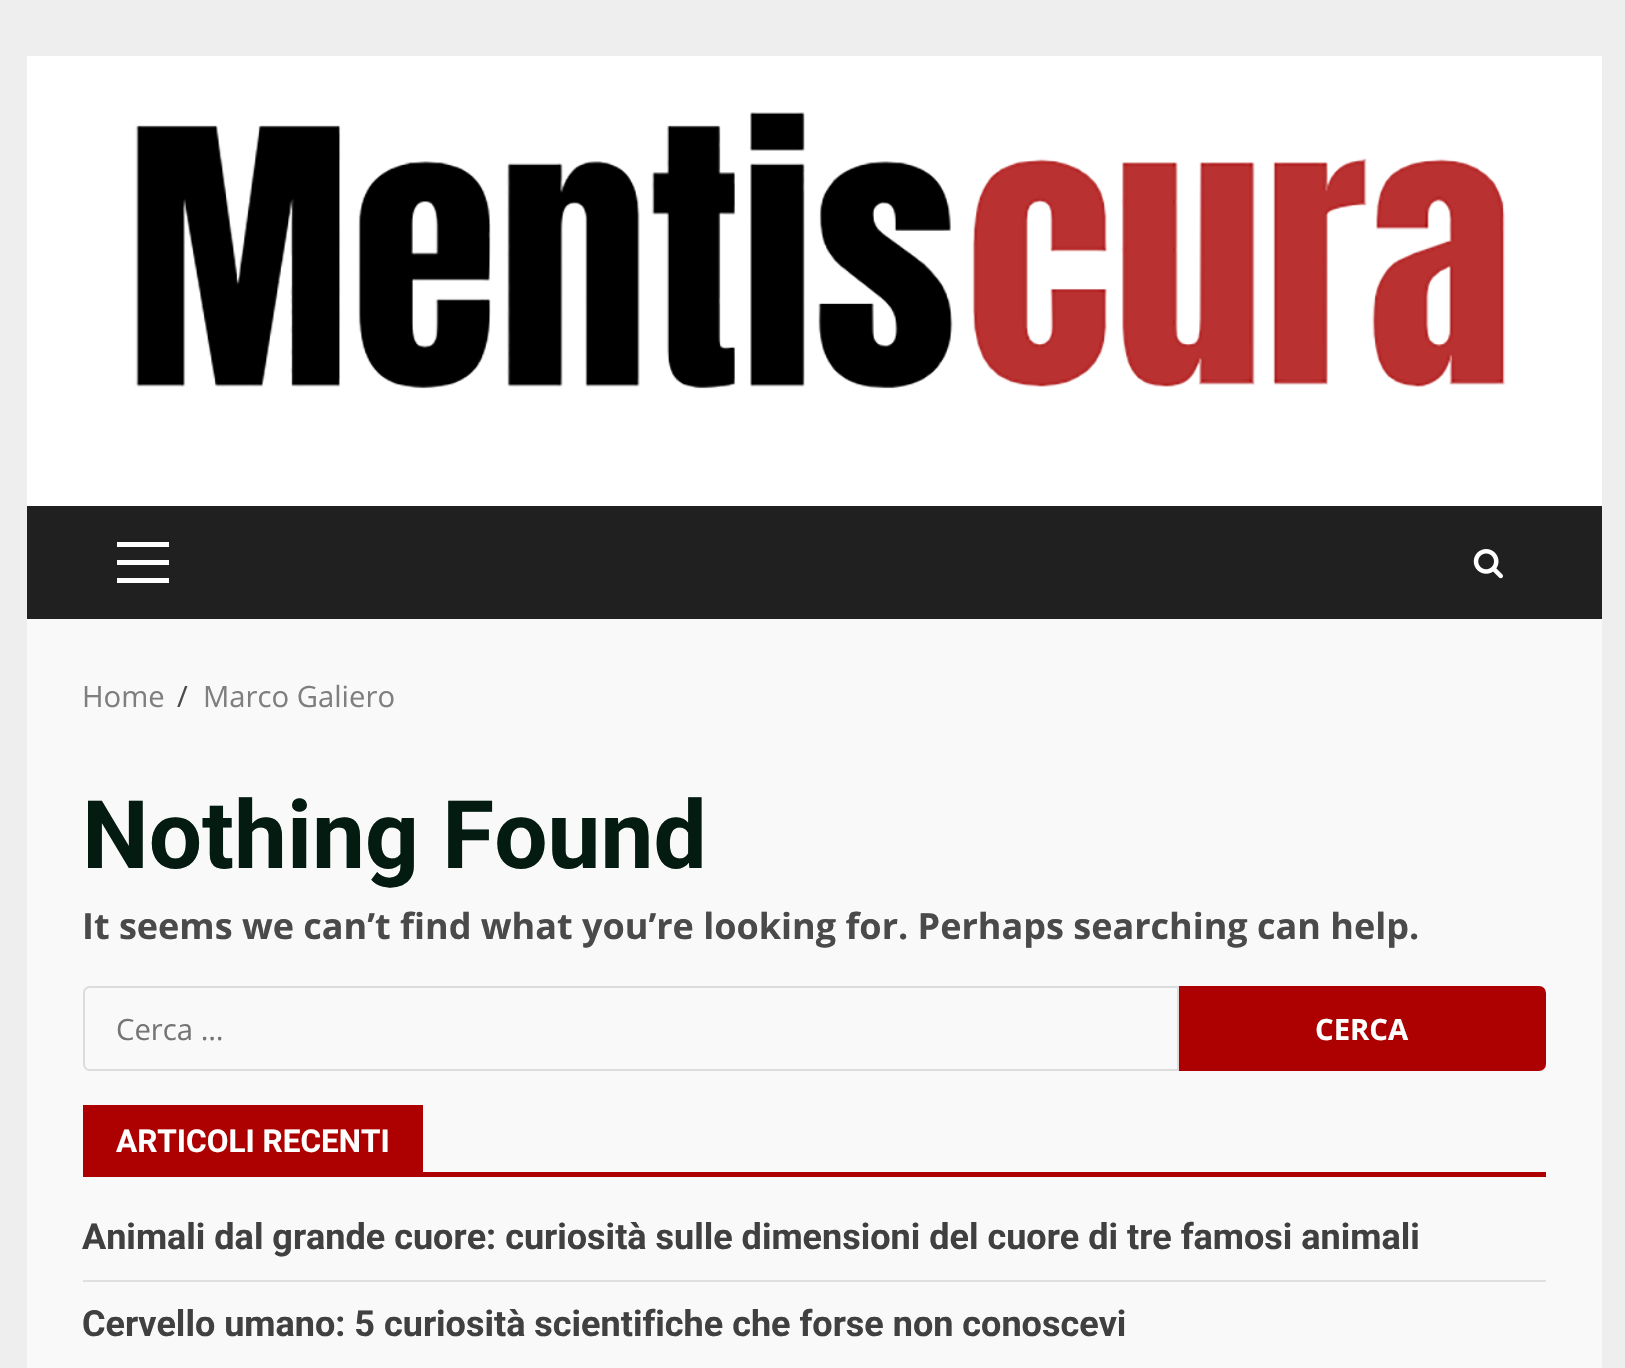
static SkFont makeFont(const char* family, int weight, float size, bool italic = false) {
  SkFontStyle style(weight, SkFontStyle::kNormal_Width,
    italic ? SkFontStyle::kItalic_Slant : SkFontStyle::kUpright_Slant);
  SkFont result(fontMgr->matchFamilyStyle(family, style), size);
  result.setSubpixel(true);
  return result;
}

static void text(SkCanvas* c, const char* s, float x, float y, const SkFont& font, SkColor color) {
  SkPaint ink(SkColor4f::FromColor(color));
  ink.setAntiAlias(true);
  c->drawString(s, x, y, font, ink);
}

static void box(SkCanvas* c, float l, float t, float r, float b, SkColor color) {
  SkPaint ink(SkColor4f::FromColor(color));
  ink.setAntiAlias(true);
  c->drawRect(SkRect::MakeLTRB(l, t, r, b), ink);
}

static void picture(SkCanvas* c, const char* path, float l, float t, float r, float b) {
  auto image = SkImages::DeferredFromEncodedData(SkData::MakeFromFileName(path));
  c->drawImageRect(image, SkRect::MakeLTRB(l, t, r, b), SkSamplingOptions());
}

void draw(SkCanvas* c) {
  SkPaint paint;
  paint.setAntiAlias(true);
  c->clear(0xffeeeeee);
  box(c, 27, 619, 1602, 1368, 0xfff9f9f9);
  box(c, 27, 56, 1602, 506, 0xffffffff);
  picture(c, "img_01.png", 135, 112, 1506, 389);
  box(c, 27, 506, 1602, 619, 0xff202020);
  box(c, 117, 560, 169, 565, 0xffffffff);
  box(c, 117, 542, 169, 547, 0xffffffff);
  box(c, 117, 578, 169, 583, 0xffffffff);
  picture(c, "img_02.png", 1473, 549, 1503, 579);
  SkFont face1 = makeFont("Open Sans", 400, 29.25f);
  text(c, "Home", 82, 707, face1, 0xff7f7f7f);
  text(c, "/", 177, 707, face1, 0xff4a4a4a);
  text(c, "Marco Galiero", 203, 707, face1, 0xff7f7f7f);
  SkFont face2 = makeFont("Roboto", 700, 94.5f);
  text(c, "Nothing Found", 82, 868, face2, 0xff031b11);
  SkFont face3 = makeFont("Open Sans", 700, 36);
  text(c, "It seems we can’t find what you’re looking for. Perhaps searching can help.", 82, 939, face3, 0xff4a4a4a);
  paint.setStyle(SkPaint::kStroke_Style);
  paint.setStrokeWidth(2);
  paint.setColor(0xffdcdcdc);
  c->drawPath(SkPathBuilder().moveTo(90, 987).lineTo(1178, 987).lineTo(1178, 1070).lineTo(90, 1070).cubicTo(86.5f, 1070, 84, 1067.5f, 84, 1064).lineTo(84, 993).cubicTo(84, 989.5f, 86.5f, 987, 90, 987).close().detach(), paint);
  text(c, "Cerca …", 116, 1040, face1, 0xff757575);
  paint.setStyle(SkPaint::kFill_Style);
  paint.setColor(0xffad0000);
  c->drawPath(SkPathBuilder().moveTo(1180, 987).lineTo(1539, 987).cubicTo(1542.5f, 987, 1545, 989.5f, 1545, 993).lineTo(1545, 1064).cubicTo(1545, 1067.5f, 1542.5f, 1070, 1539, 1070).lineTo(1180, 1070).close().detach(), paint);
  paint.setStyle(SkPaint::kStroke_Style);
  c->drawPath(SkPathBuilder().moveTo(1180, 987).lineTo(1539, 987).cubicTo(1542.5f, 987, 1545, 989.5f, 1545, 993).lineTo(1545, 1064).cubicTo(1545, 1067.5f, 1542.5f, 1070, 1539, 1070).lineTo(1180, 1070).close().detach(), paint);
  SkFont face4 = makeFont("Open Sans", 700, 29.25f);
  text(c, "CERCA", 1315, 1040, face4, 0xffffffff);
  box(c, 83, 1172, 1546, 1177, 0xffad0000);
  box(c, 83, 1105, 423, 1172, 0xffad0000);
  SkFont face5 = makeFont("Roboto", 700, 31.5f);
  text(c, "ARTICOLI RECENTI", 116, 1152, face5, 0xffffffff);
  box(c, 83, 1280, 1546, 1282, 0xffe0e0e0);
  SkFont face6 = makeFont("Roboto", 700, 36);
  text(c, "Animali dal grande cuore: curiosità sulle dimensioni del cuore di tre famosi animali", 82, 1249, face6, 0xff404040);
  text(c, "Cervello umano: 5 curiosità scientifiche che forse non conoscevi", 82, 1336, face6, 0xff404040);
}
